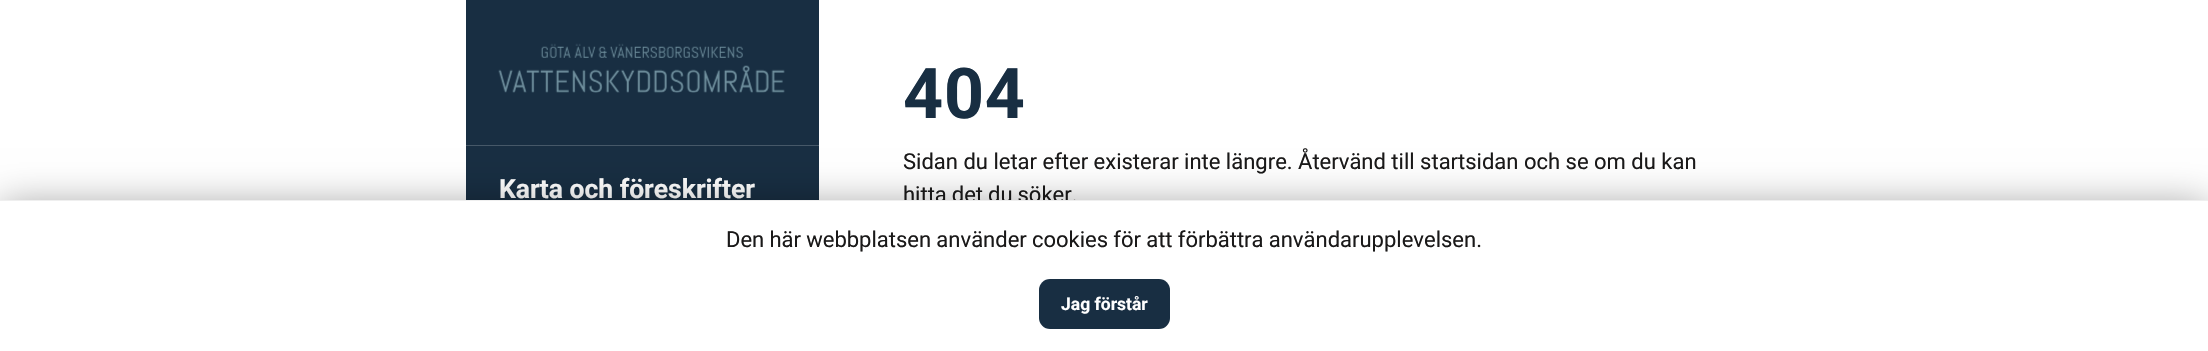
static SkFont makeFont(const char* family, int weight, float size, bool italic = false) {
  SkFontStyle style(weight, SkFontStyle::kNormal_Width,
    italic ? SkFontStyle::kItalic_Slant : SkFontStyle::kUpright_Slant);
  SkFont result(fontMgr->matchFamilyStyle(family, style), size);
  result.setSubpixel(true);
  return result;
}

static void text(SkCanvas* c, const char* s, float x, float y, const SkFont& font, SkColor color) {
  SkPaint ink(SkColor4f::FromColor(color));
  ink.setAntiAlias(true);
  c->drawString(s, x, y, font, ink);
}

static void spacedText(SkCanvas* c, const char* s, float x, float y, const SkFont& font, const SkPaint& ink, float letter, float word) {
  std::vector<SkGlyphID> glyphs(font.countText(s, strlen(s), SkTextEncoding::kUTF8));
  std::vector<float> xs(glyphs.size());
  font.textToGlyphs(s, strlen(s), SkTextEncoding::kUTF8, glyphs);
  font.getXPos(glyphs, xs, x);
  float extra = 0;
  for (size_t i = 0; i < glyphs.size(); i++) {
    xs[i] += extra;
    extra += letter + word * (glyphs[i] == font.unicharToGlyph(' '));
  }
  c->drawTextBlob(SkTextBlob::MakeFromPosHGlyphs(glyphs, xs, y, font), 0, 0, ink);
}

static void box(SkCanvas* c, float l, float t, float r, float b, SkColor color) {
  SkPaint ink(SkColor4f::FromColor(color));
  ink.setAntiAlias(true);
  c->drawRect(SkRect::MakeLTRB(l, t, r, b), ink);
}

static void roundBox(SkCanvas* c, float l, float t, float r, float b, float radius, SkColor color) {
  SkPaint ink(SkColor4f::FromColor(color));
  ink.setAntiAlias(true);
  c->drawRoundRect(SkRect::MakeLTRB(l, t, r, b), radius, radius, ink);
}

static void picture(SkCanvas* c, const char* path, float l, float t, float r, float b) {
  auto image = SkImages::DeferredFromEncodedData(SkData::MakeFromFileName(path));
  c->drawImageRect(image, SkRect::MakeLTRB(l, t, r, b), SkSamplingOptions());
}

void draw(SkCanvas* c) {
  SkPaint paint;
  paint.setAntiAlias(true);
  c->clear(0xffffffff);
  box(c, 466, 0, 819, 200, 0xff182e42);
  picture(c, "img_01.png", 498, 43, 785, 93);
  box(c, 466, 145, 819, 146, 0xff465868);
  SkFont face1 = makeFont("Roboto", 700, 26.5f);
  text(c, "Karta och föreskrifter", 499, 198, face1, 0xffffffff);
  SkFont face2 = makeFont("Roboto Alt", 700, 70);
  text(c, "404", 903, 118, face2, 0xff182e42);
  SkFont face3 = makeFont("Roboto", 400, 22);
  text(c, "Sidan du letar efter existerar inte längre. Återvänd till startsidan och se om du kan", 903, 169, face3, 0xff1a1919);
  paint.setColor(0xff1a1919);
  spacedText(c, "hitta det du söker.", 903, 202, face3, paint, 0, -0.5f);
  paint.setColor(0x66000000);
  paint.setMaskFilter(SkMaskFilter::MakeBlur(kNormal_SkBlurStyle, 19.5f));
  c->drawRect(SkRect::MakeLTRB(0, 206, 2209, 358), paint);
  paint.setMaskFilter(nullptr);
  box(c, 0, 201, 2208, 351, 0xffffffff);
  box(c, 0, 200, 2208, 201, 0xffefefef);
  paint.setColor(0xff1a1919);
  spacedText(c, "Den här webbplatsen använder cookies för att förbättra användarupplevelsen.", 726, 247, face3, paint, 0, -0.25f);
  roundBox(c, 1039, 279, 1170, 329, 11, 0xff182e42);
  SkFont face4 = makeFont("Roboto", 700, 17.5f);
  text(c, "Jag förstår", 1061, 310, face4, 0xffffffff);
}
